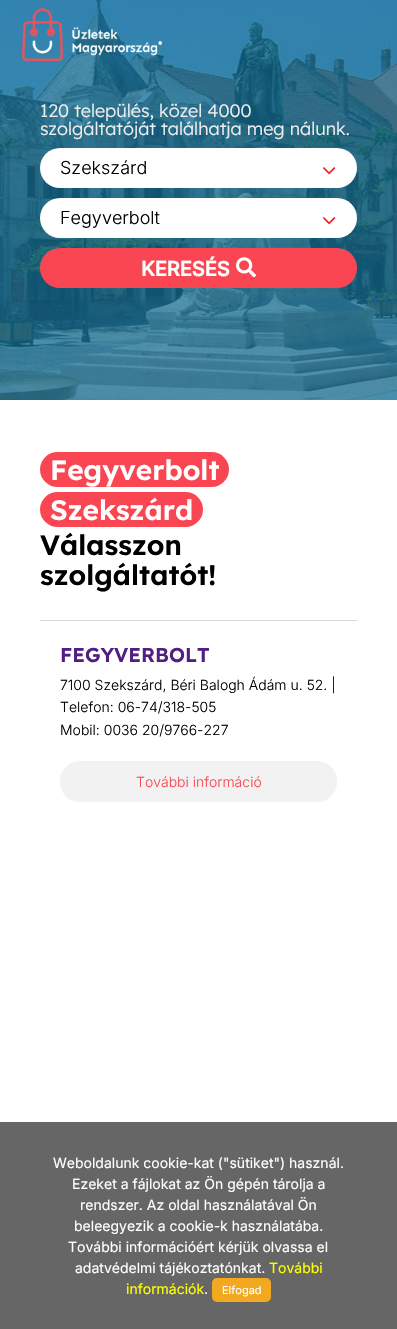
static SkFont makeFont(const char* family, int weight, float size, bool italic = false) {
  SkFontStyle style(weight, SkFontStyle::kNormal_Width,
    italic ? SkFontStyle::kItalic_Slant : SkFontStyle::kUpright_Slant);
  SkFont result(fontMgr->matchFamilyStyle(family, style), size);
  result.setSubpixel(true);
  return result;
}

static void text(SkCanvas* c, const char* s, float x, float y, const SkFont& font, SkColor color) {
  SkPaint ink(SkColor4f::FromColor(color));
  ink.setAntiAlias(true);
  c->drawString(s, x, y, font, ink);
}

static void box(SkCanvas* c, float l, float t, float r, float b, SkColor color) {
  SkPaint ink(SkColor4f::FromColor(color));
  ink.setAntiAlias(true);
  c->drawRect(SkRect::MakeLTRB(l, t, r, b), ink);
}

static void roundBox(SkCanvas* c, float l, float t, float r, float b, float radius, SkColor color) {
  SkPaint ink(SkColor4f::FromColor(color));
  ink.setAntiAlias(true);
  c->drawRoundRect(SkRect::MakeLTRB(l, t, r, b), radius, radius, ink);
}

static void picture(SkCanvas* c, const char* path, float l, float t, float r, float b) {
  auto image = SkImages::DeferredFromEncodedData(SkData::MakeFromFileName(path));
  c->drawImageRect(image, SkRect::MakeLTRB(l, t, r, b), SkSamplingOptions());
}

void draw(SkCanvas* c) {
  SkPaint paint;
  paint.setAntiAlias(true);
  c->clear(0xffffffff);
  picture(c, "img_02.png", 0, 0, 397, 400);
  picture(c, "img_01.png", 22, 8, 162, 61);
  SkFont face1 = makeFont("Lexend", 300, 18);
  text(c, "120 település, közel 4000", 40, 117, face1, 0xffeeeeee);
  text(c, "szolgáltatóját találhatja meg nálunk.", 40, 135, face1, 0xffeeeeee);
  roundBox(c, 40, 148, 357, 188, 20, 0xffffffff);
  SkFont face2 = makeFont("Inter", 300, 18);
  text(c, "Szekszárd", 60, 174, face2, 0xff000000);
  picture(c, "img_03.png", 323, 167, 336, 175);
  roundBox(c, 40, 198, 357, 238, 20, 0xffffffff);
  text(c, "Fegyverbolt", 60, 224, face2, 0xff000000);
  picture(c, "img_03.png", 323, 217, 336, 225);
  roundBox(c, 40, 248, 357, 288, 20, 0xfffa4652);
  SkFont face3 = makeFont("Inter", 700, 20);
  text(c, "KERESÉS", 141, 276, face3, 0xffffffff);
  picture(c, "img_04.png", 236, 257, 256, 278);
  roundBox(c, 40, 452, 229, 487, 17.5f, 0xfffa4652);
  SkFont face4 = makeFont("Lexend", 600, 28);
  text(c, "Fegyverbolt", 50, 480, face4, 0xffffffff);
  roundBox(c, 40, 492, 203, 527, 17.5f, 0xfffa4652);
  text(c, "Szekszárd", 50, 520, face4, 0xffffffff);
  text(c, "Válasszon", 40, 555, face4, 0xff000000);
  text(c, "szolgáltatót!", 40, 585, face4, 0xff000000);
  box(c, 40, 620, 357, 621, 0xffd9d9d9);
  SkFont face5 = makeFont("Lexend", 600, 20);
  text(c, "FEGYVERBOLT", 60, 662, face5, 0xff521e81);
  SkFont face6 = makeFont("Inter", 300, 14);
  text(c, "7100 Szekszárd, Béri Balogh Ádám u. 52. |", 60, 690, face6, 0xff000000);
  text(c, "Telefon: 06-74/318-505", 60, 712, face6, 0xff000000);
  text(c, "Mobil: 0036 20/9766-227", 60, 735, face6, 0xff000000);
  roundBox(c, 60, 761, 337, 802, 20, 0xfff2f2f2);
  text(c, "További információ", 136, 787, face6, 0xfffa4652);
  box(c, 0, 1122, 397, 1329, 0xff666666);
  SkFont face7 = makeFont("Inter", 400, 14);
  text(c, "Weboldalunk cookie-kat (\"sütiket\") használ.", 53, 1168, face7, 0xffffffff);
  text(c, "Ezeket a fájlokat az Ön gépén tárolja a", 72, 1189, face7, 0xffffffff);
  text(c, "rendszer. Az oldal használatával Ön", 80, 1210, face7, 0xffffffff);
  text(c, "beleegyezik a cookie-k használatába.", 74, 1231, face7, 0xffffffff);
  text(c, "További információért kérjük olvassa el", 68, 1252, face7, 0xffffffff);
  text(c, "adatvédelmi tájékoztatónkat.", 75, 1273, face7, 0xffffffff);
  text(c, "További", 269, 1273, face7, 0xffffff00);
  text(c, "információk", 126, 1294, face7, 0xffffff00);
  text(c, ".", 204, 1294, face7, 0xffffffff);
  roundBox(c, 212, 1278, 271, 1302, 5, 0xfff2a920);
  SkFont face8 = makeFont("Inter", 400, 11);
  text(c, "Elfogad", 222, 1294, face8, 0xffffffff);
}
